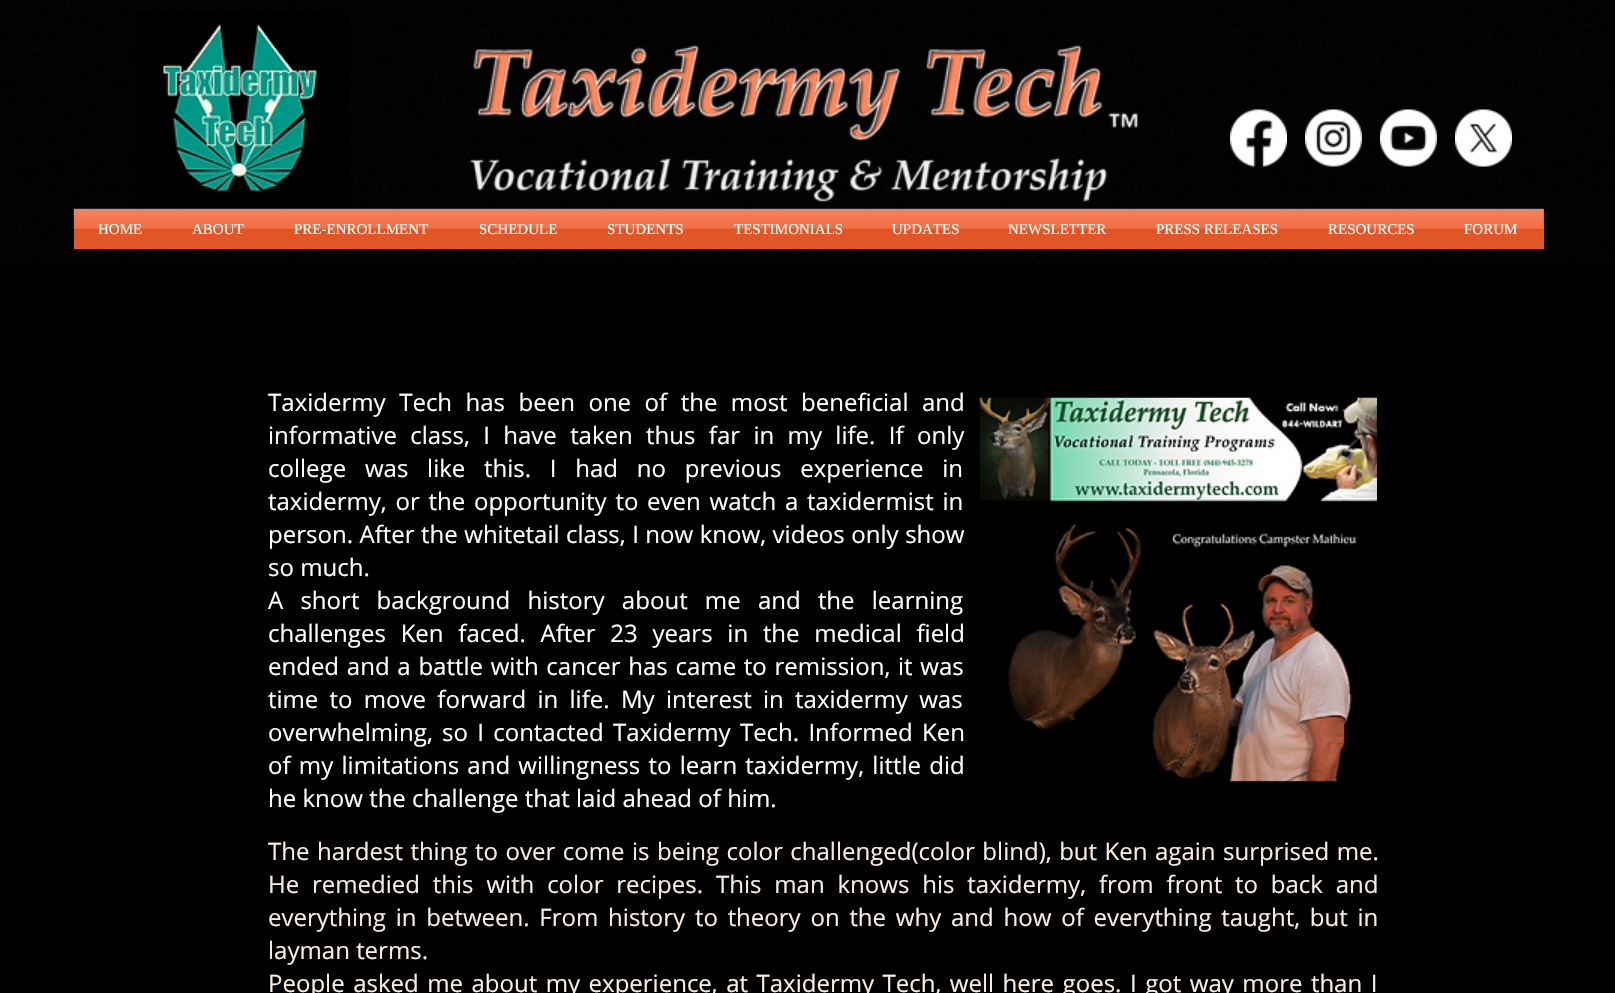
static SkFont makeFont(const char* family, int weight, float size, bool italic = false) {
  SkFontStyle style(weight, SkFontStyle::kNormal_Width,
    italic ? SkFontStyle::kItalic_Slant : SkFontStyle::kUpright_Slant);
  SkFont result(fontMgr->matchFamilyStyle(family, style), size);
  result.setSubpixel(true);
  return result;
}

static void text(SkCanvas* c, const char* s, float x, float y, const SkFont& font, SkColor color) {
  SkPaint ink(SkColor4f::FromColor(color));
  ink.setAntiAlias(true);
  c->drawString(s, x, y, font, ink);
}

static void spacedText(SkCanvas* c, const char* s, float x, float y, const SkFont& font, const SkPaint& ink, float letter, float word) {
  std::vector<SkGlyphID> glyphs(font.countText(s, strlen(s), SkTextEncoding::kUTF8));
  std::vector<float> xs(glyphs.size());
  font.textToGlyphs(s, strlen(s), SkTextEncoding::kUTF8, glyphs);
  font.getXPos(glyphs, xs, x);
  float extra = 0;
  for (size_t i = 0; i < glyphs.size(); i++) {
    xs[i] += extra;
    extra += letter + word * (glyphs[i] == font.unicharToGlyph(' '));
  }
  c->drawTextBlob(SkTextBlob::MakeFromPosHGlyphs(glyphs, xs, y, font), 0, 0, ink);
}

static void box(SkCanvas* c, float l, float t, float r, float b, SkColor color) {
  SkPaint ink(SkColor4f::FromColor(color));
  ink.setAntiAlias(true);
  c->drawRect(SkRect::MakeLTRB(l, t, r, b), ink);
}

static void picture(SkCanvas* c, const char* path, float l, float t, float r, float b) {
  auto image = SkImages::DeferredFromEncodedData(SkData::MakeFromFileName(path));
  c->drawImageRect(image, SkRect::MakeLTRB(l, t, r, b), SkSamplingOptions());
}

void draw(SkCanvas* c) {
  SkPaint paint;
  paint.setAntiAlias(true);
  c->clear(0xff000000);
  picture(c, "img_01.png", 0, 0, 1615, 265);
  picture(c, "img_02.png", 134, 11, 348, 208);
  picture(c, "img_03.png", 469, 44, 1139, 202);
  picture(c, "img_04.png", 1230, 109, 1287, 167);
  picture(c, "img_05.png", 1305, 109, 1362, 167);
  picture(c, "img_06.png", 1380, 109, 1437, 167);
  picture(c, "img_07.png", 1455, 109, 1512, 167);
  box(c, 74, 209, 1544, 249, 0xfff05b29);
  picture(c, "img_08.png", 73, 208, 168, 249);
  SkFont face1 = makeFont("Liberation Serif", 400, 15);
  text(c, "HOME", 98, 234, face1, 0xffffffff);
  picture(c, "img_09.png", 168, 208, 270, 249);
  text(c, "ABOUT", 192, 234, face1, 0xffffffff);
  picture(c, "img_10.png", 270, 208, 455, 249);
  text(c, "PRE-ENROLLMENT", 294, 234, face1, 0xffffffff);
  picture(c, "img_11.png", 454, 208, 584, 249);
  text(c, "SCHEDULE", 479, 234, face1, 0xffffffff);
  picture(c, "img_12.png", 583, 208, 710, 249);
  text(c, "STUDENTS", 607, 234, face1, 0xffffffff);
  picture(c, "img_13.png", 709, 208, 869, 249);
  text(c, "TESTIMONIALS", 734, 234, face1, 0xffffffff);
  picture(c, "img_14.png", 868, 208, 984, 249);
  text(c, "UPDATES", 892, 234, face1, 0xffffffff);
  picture(c, "img_15.png", 984, 208, 1133, 249);
  text(c, "NEWSLETTER", 1008, 234, face1, 0xffffffff);
  picture(c, "img_16.png", 1132, 208, 1304, 249);
  text(c, "PRESS RELEASES", 1156, 234, face1, 0xffffffff);
  picture(c, "img_17.png", 1303, 208, 1440, 249);
  text(c, "RESOURCES", 1328, 234, face1, 0xffffffff);
  picture(c, "img_18.png", 1440, 208, 1544, 249);
  text(c, "FORUM", 1464, 234, face1, 0xffffffff);
  SkFont face2 = makeFont("Open Sans", 400, 24);
  paint.setColor(0xffffffff);
  spacedText(c, "Taxidermy Tech has been one of the most beneficial and", 268, 411, face2, paint, 0, 7.25f);
  spacedText(c, "informative class, I have taken thus far in my life. If only", 268, 444, face2, paint, 0, 7.1f);
  spacedText(c, "college was like this. I had no previous experience in", 268, 477, face2, paint, 0, 12.5f);
  spacedText(c, "taxidermy, or the opportunity to even watch a taxidermist in", 268, 510, face2, paint, 0, 2.5f);
  spacedText(c, "person. After the whitetail class, I now know, videos only show", 268, 543, face2, paint, 0, 0.25f);
  text(c, "so much.", 268, 576, face2, 0xffffffff);
  spacedText(c, "A short background history about me and the learning", 268, 609, face2, paint, 0, 11);
  spacedText(c, "challenges Ken faced. After 23 years in the medical field", 268, 642, face2, paint, 0, 8.5f);
  spacedText(c, "ended and a battle with cancer has came to remission, it was", 268, 675, face2, paint, 0, 1.5f);
  spacedText(c, "time to move forward in life. My interest in taxidermy was", 268, 708, face2, paint, 0, 5);
  spacedText(c, "overwhelming, so I contacted Taxidermy Tech. Informed Ken", 268, 741, face2, paint, 0, 3);
  spacedText(c, "of my limitations and willingness to learn taxidermy, little did", 268, 774, face2, paint, 0, 2);
  text(c, "he know the challenge that laid ahead of him.", 268, 807, face2, 0xffffffff);
  picture(c, "img_19.png", 979, 397, 1377, 782);
  paint.setColor(0xfffaece1);
  spacedText(c, "The hardest thing to over come is being color challenged(color blind), but Ken again surprised me.", 268, 860, face2, paint, 0, 1.25f);
  spacedText(c, "He remedied this with color recipes. This man knows his taxidermy, from front to back and", 268, 893, face2, paint, 0, 6.6f);
  spacedText(c, "everything in between. From history to theory on the why and how of everything taught, but in", 268, 926, face2, paint, 0, 3.5f);
  text(c, "layman terms.", 268, 959, face2, 0xfffaece1);
  spacedText(c, "People asked me about my experience, at Taxidermy Tech, well here goes. I got way more than I", 268, 992, face2, paint, 0, 2.25f);
}
